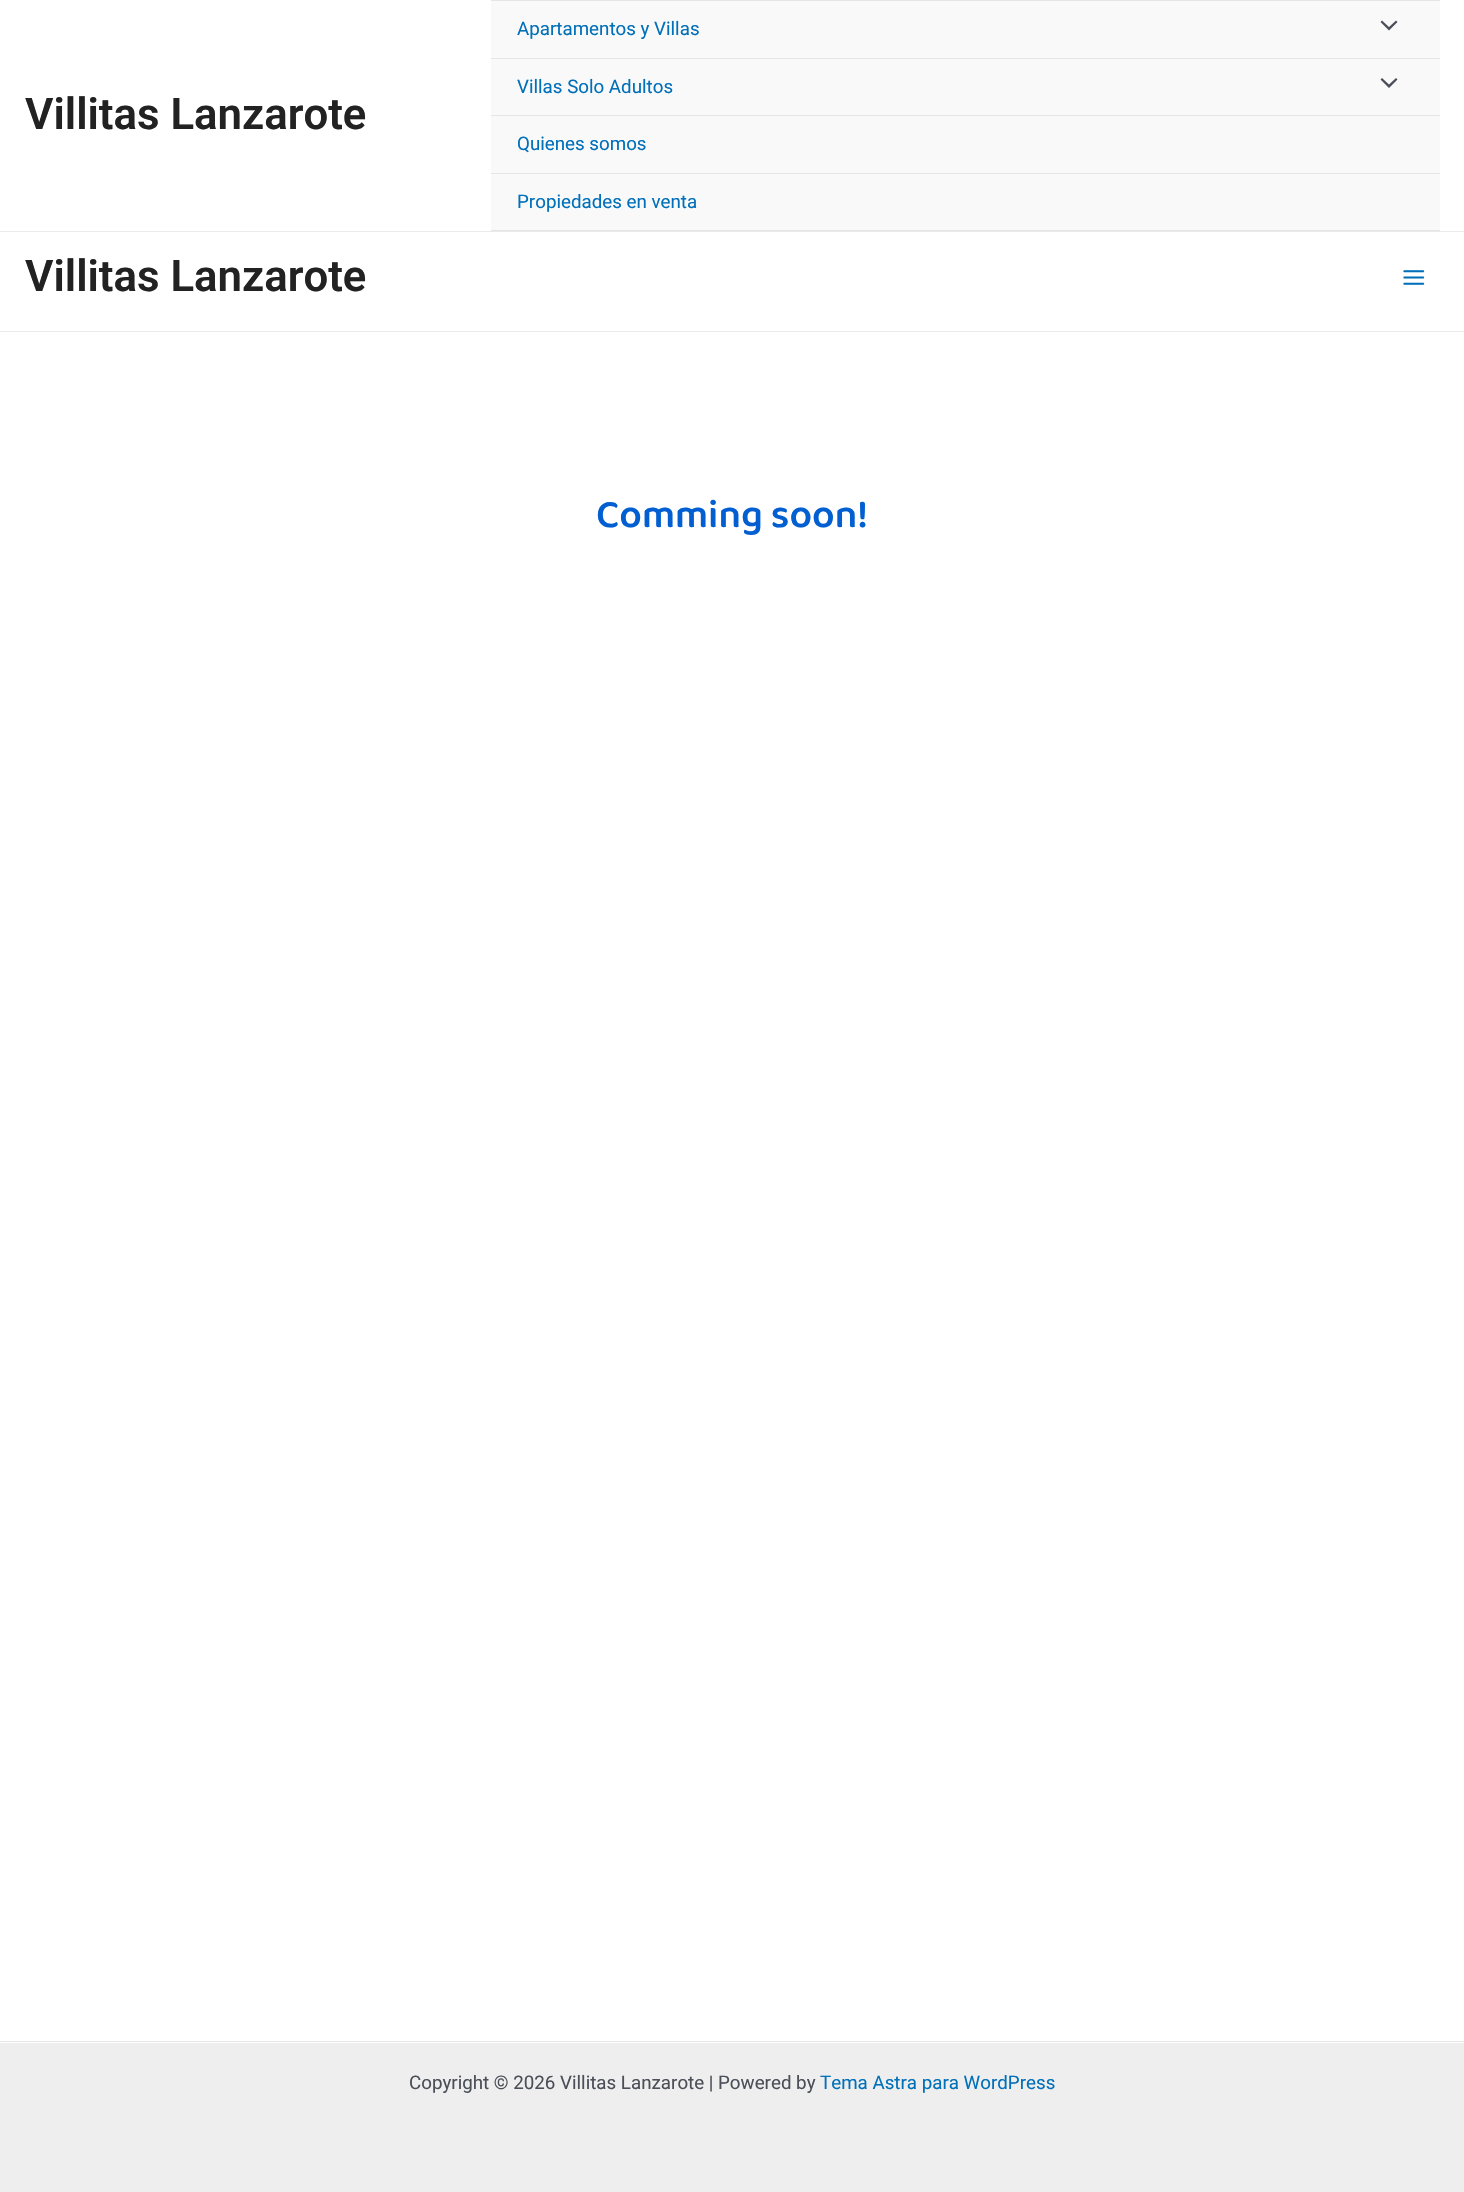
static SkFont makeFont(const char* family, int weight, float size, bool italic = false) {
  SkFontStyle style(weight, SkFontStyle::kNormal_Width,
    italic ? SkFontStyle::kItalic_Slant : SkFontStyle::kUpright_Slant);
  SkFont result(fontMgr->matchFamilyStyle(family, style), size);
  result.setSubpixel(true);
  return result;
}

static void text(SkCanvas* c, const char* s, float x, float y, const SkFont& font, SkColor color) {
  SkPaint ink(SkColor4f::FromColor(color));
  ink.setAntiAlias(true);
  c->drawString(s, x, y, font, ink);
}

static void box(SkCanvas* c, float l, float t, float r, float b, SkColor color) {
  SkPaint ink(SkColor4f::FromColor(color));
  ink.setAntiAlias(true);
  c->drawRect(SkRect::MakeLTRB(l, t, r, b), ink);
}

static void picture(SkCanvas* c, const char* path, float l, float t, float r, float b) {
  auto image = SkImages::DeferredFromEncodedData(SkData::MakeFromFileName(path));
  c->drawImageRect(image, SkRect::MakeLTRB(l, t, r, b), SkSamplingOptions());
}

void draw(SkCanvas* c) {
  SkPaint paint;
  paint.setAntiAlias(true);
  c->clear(0xffffffff);
  box(c, 0, 231, 1464, 232, 0xffeaeaea);
  SkFont face1 = makeFont("Roboto", 600, 43.75f);
  text(c, "Villitas Lanzarote", 25, 129, face1, 0xff222222);
  box(c, 491, 1, 1440, 230, 0xfff9f9f9);
  box(c, 491, 0, 1440, 1, 0xffe5e5e5);
  box(c, 491, 58, 1440, 59, 0xffe5e5e5);
  SkFont face2 = makeFont("Roboto", 400, 18.75f);
  text(c, "Apartamentos y Villas", 517, 35, face2, 0xff0170b9);
  paint.setColor(0xff4b4f58);
  c->drawPath(SkPathBuilder().moveTo(1380.5f, 22).lineTo(1389, 30.5f).lineTo(1397.5f, 22).lineTo(1396, 20.5f).lineTo(1389, 27).lineTo(1382, 20.5f).close().detach(), paint);
  box(c, 491, 115, 1440, 116, 0xffe5e5e5);
  text(c, "Villas Solo Adultos", 517, 93, face2, 0xff0170b9);
  c->drawPath(SkPathBuilder().moveTo(1380.5f, 79.5f).lineTo(1389, 88).lineTo(1397.5f, 79.5f).lineTo(1396, 78).lineTo(1389, 84.5f).lineTo(1382, 78).close().detach(), paint);
  box(c, 491, 173, 1440, 174, 0xffe5e5e5);
  text(c, "Quienes somos", 517, 150, face2, 0xff0170b9);
  box(c, 491, 230, 1440, 231, 0xffe5e5e5);
  text(c, "Propiedades en venta", 517, 208, face2, 0xff0170b9);
  box(c, 0, 331, 1464, 332, 0xffeaeaea);
  text(c, "Villitas Lanzarote", 25, 291, face1, 0xff222222);
  picture(c, "img_01.png", 1403, 270, 1425, 285);
  SkFont face3 = makeFont("Baloo Tammudu 2", 600, 40);
  text(c, "Comming soon!", 596, 527, face3, 0xff015fd1);
  box(c, 0, 2043, 1464, 2192, 0xffeeeeee);
  box(c, 0, 2041, 1464, 2042, 0xffe5e5e5);
  text(c, "Copyright © 2026 Villitas Lanzarote | Powered by", 409, 2089, face2, 0xff4b4f58);
  text(c, "Tema Astra para WordPress", 820, 2089, face2, 0xff0170b9);
}
